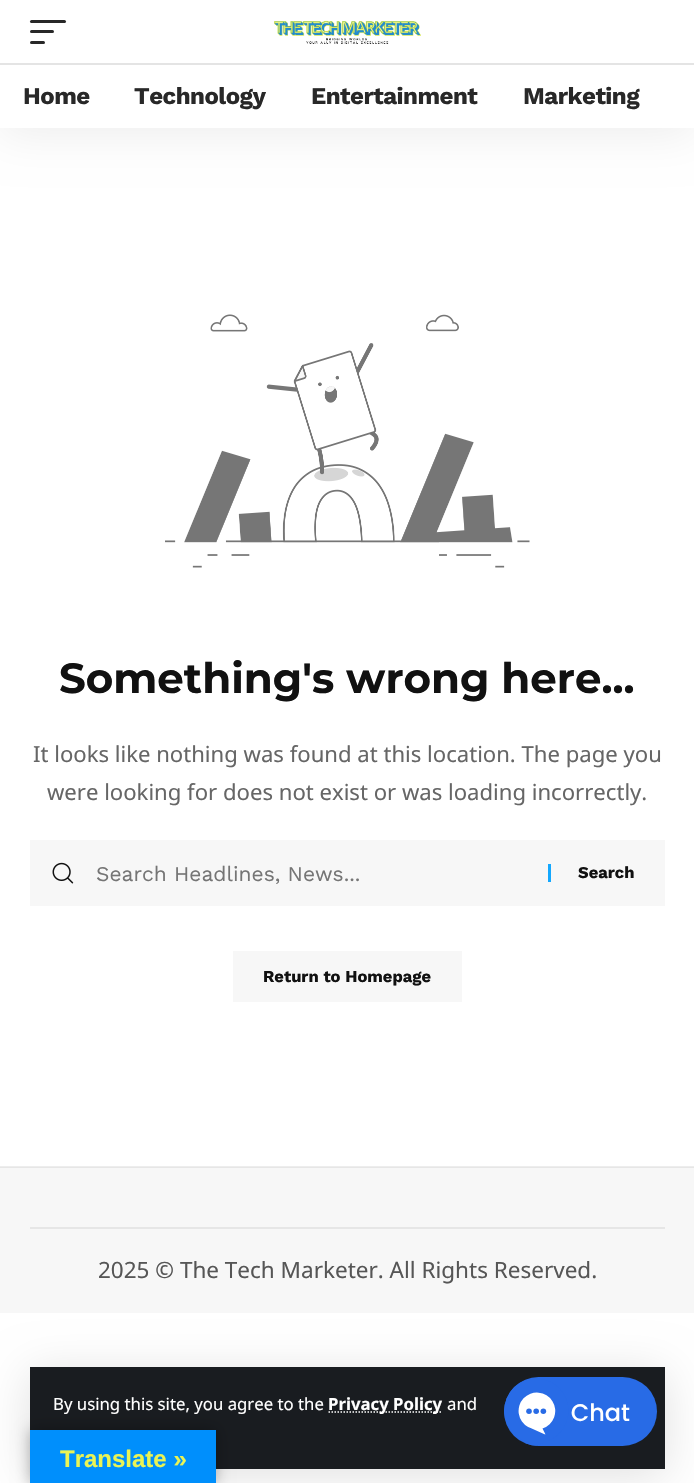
static SkFont makeFont(const char* family, int weight, float size, bool italic = false) {
  SkFontStyle style(weight, SkFontStyle::kNormal_Width,
    italic ? SkFontStyle::kItalic_Slant : SkFontStyle::kUpright_Slant);
  SkFont result(fontMgr->matchFamilyStyle(family, style), size);
  result.setSubpixel(true);
  return result;
}

static void text(SkCanvas* c, const char* s, float x, float y, const SkFont& font, SkColor color) {
  SkPaint ink(SkColor4f::FromColor(color));
  ink.setAntiAlias(true);
  c->drawString(s, x, y, font, ink);
}

static void spacedText(SkCanvas* c, const char* s, float x, float y, const SkFont& font, const SkPaint& ink, float letter, float word) {
  std::vector<SkGlyphID> glyphs(font.countText(s, strlen(s), SkTextEncoding::kUTF8));
  std::vector<float> xs(glyphs.size());
  font.textToGlyphs(s, strlen(s), SkTextEncoding::kUTF8, glyphs);
  font.getXPos(glyphs, xs, x);
  float extra = 0;
  for (size_t i = 0; i < glyphs.size(); i++) {
    xs[i] += extra;
    extra += letter + word * (glyphs[i] == font.unicharToGlyph(' '));
  }
  c->drawTextBlob(SkTextBlob::MakeFromPosHGlyphs(glyphs, xs, y, font), 0, 0, ink);
}

static void box(SkCanvas* c, float l, float t, float r, float b, SkColor color) {
  SkPaint ink(SkColor4f::FromColor(color));
  ink.setAntiAlias(true);
  c->drawRect(SkRect::MakeLTRB(l, t, r, b), ink);
}

static void roundBox(SkCanvas* c, float l, float t, float r, float b, float radius, SkColor color) {
  SkPaint ink(SkColor4f::FromColor(color));
  ink.setAntiAlias(true);
  c->drawRoundRect(SkRect::MakeLTRB(l, t, r, b), radius, radius, ink);
}

static void picture(SkCanvas* c, const char* path, float l, float t, float r, float b) {
  auto image = SkImages::DeferredFromEncodedData(SkData::MakeFromFileName(path));
  c->drawImageRect(image, SkRect::MakeLTRB(l, t, r, b), SkSamplingOptions());
}

void draw(SkCanvas* c) {
  SkPaint paint;
  paint.setAntiAlias(true);
  c->clear(0xffffffff);
  box(c, 0, 1168, 694, 1313, 0xfff7f7f7);
  paint.setColor(0x12000000);
  paint.setMaskFilter(SkMaskFilter::MakeBlur(kNormal_SkBlurStyle, 22.5f));
  c->drawRect(SkRect::MakeLTRB(0, 6, 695, 134), paint);
  paint.setMaskFilter(nullptr);
  box(c, 0, 0, 694, 128, 0xffffffff);
  roundBox(c, 30, 20, 66, 23, 1.5f, 0xff282828);
  roundBox(c, 30, 30, 54, 33, 1.5f, 0xff282828);
  roundBox(c, 30, 41, 45, 44, 1.5f, 0xff282828);
  picture(c, "img_01.png", 274, 20, 421, 44);
  box(c, 0, 63, 694, 65, 0xffe4e4e4);
  SkFont face1 = makeFont("Work Sans", 700, 24);
  paint.setColor(0xff282828);
  spacedText(c, "Home", 23, 104, face1, paint, -0.5f, 0);
  spacedText(c, "Technology", 134, 104, face1, paint, -0.5f, 0);
  spacedText(c, "Entertainment", 311, 104, face1, paint, -0.5f, 0);
  spacedText(c, "Marketing", 523, 104, face1, paint, -0.5f, 0);
  paint.setColor(0x1f000000);
  paint.setMaskFilter(SkMaskFilter::MakeBlur(kNormal_SkBlurStyle, 22.5f));
  c->drawRect(SkRect::MakeLTRB(30, 1373, 665, 1475), paint);
  paint.setMaskFilter(nullptr);
  box(c, 30, 1367, 665, 1469, 0xff191c20);
  SkFont face2 = makeFont("Noto Sans Cham", 400, 16.75f);
  text(c, "By using this site, you agree to the", 53, 1410, face2, 0xffffffff);
  paint.setStyle(SkPaint::kStroke_Style);
  paint.setStrokeWidth(1.5f);
  paint.setColor(0xffffffff);
  paint.setPathEffect(SkDashPathEffect::Make({{1.5f, 1.5f}}, 0));
  c->drawPath(SkPathBuilder().moveTo(328.5f, 1412).lineTo(442.5f, 1412).detach(), paint);
  paint.setPathEffect(nullptr);
  SkFont face3 = makeFont("Noto Sans Cham", 700, 16.75f);
  text(c, "Privacy Policy", 328, 1410, face3, 0xffffffff);
  text(c, "and", 447, 1410, face2, 0xffffffff);
  picture(c, "img_02.png", 165, 314, 530, 568);
  SkFont face4 = makeFont("Montserrat", 700, 42);
  text(c, "Something's wrong here...", 59, 693, face4, 0xff111111);
  SkFont face5 = makeFont("Noto Sans Cham", 400, 22.1f);
  text(c, "It looks like nothing was found at this location. The page you", 33, 762, face5, 0xff666666);
  text(c, "were looking for does not exist or was loading incorrectly.", 47, 800, face5, 0xff666666);
  box(c, 30, 840, 665, 906, 0xfff7f7f7);
  picture(c, "img_03.png", 52, 862, 74, 884);
  SkFont face6 = makeFont("Work Sans", 400, 21);
  text(c, "Search Headlines, News...", 96, 881, face6, 0xff757575);
  box(c, 548, 864, 551, 882, 0xff14a8fe);
  SkFont face7 = makeFont("Work Sans", 700, 16.5f);
  text(c, "Search", 578, 878, face7, 0xff111111);
  box(c, 233, 951, 462, 1002, 0xfff7f7f7);
  text(c, "Return to Homepage", 263, 982, face7, 0xff111111);
  box(c, 0, 1166, 694, 1167, 0xffededed);
  box(c, 0, 1167, 694, 1168, 0xffe6e6e6);
  box(c, 30, 1227, 665, 1229, 0xffe6e6e6);
  SkFont face8 = makeFont("Noto Sans Cham", 400, 22.5f);
  text(c, "2025 © The Tech Marketer. All Rights Reserved.", 98, 1278, face8, 0xff565656);
  picture(c, "img_04.png", 504, 1377, 658, 1446);
  paint.setStyle(SkPaint::kFill_Style);
  paint.setColor(0x4d000000);
  paint.setMaskFilter(SkMaskFilter::MakeBlur(kNormal_SkBlurStyle, 7));
  c->drawRect(SkRect::MakeLTRB(30, 1430, 216, 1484), paint);
  paint.setMaskFilter(nullptr);
  box(c, 30, 1430, 216, 1483, 0xff008ffc);
  SkFont face9 = makeFont("Liberation Sans", 700, 24);
  text(c, "Translate »", 60, 1467, face9, 0xffeaf455);
}
